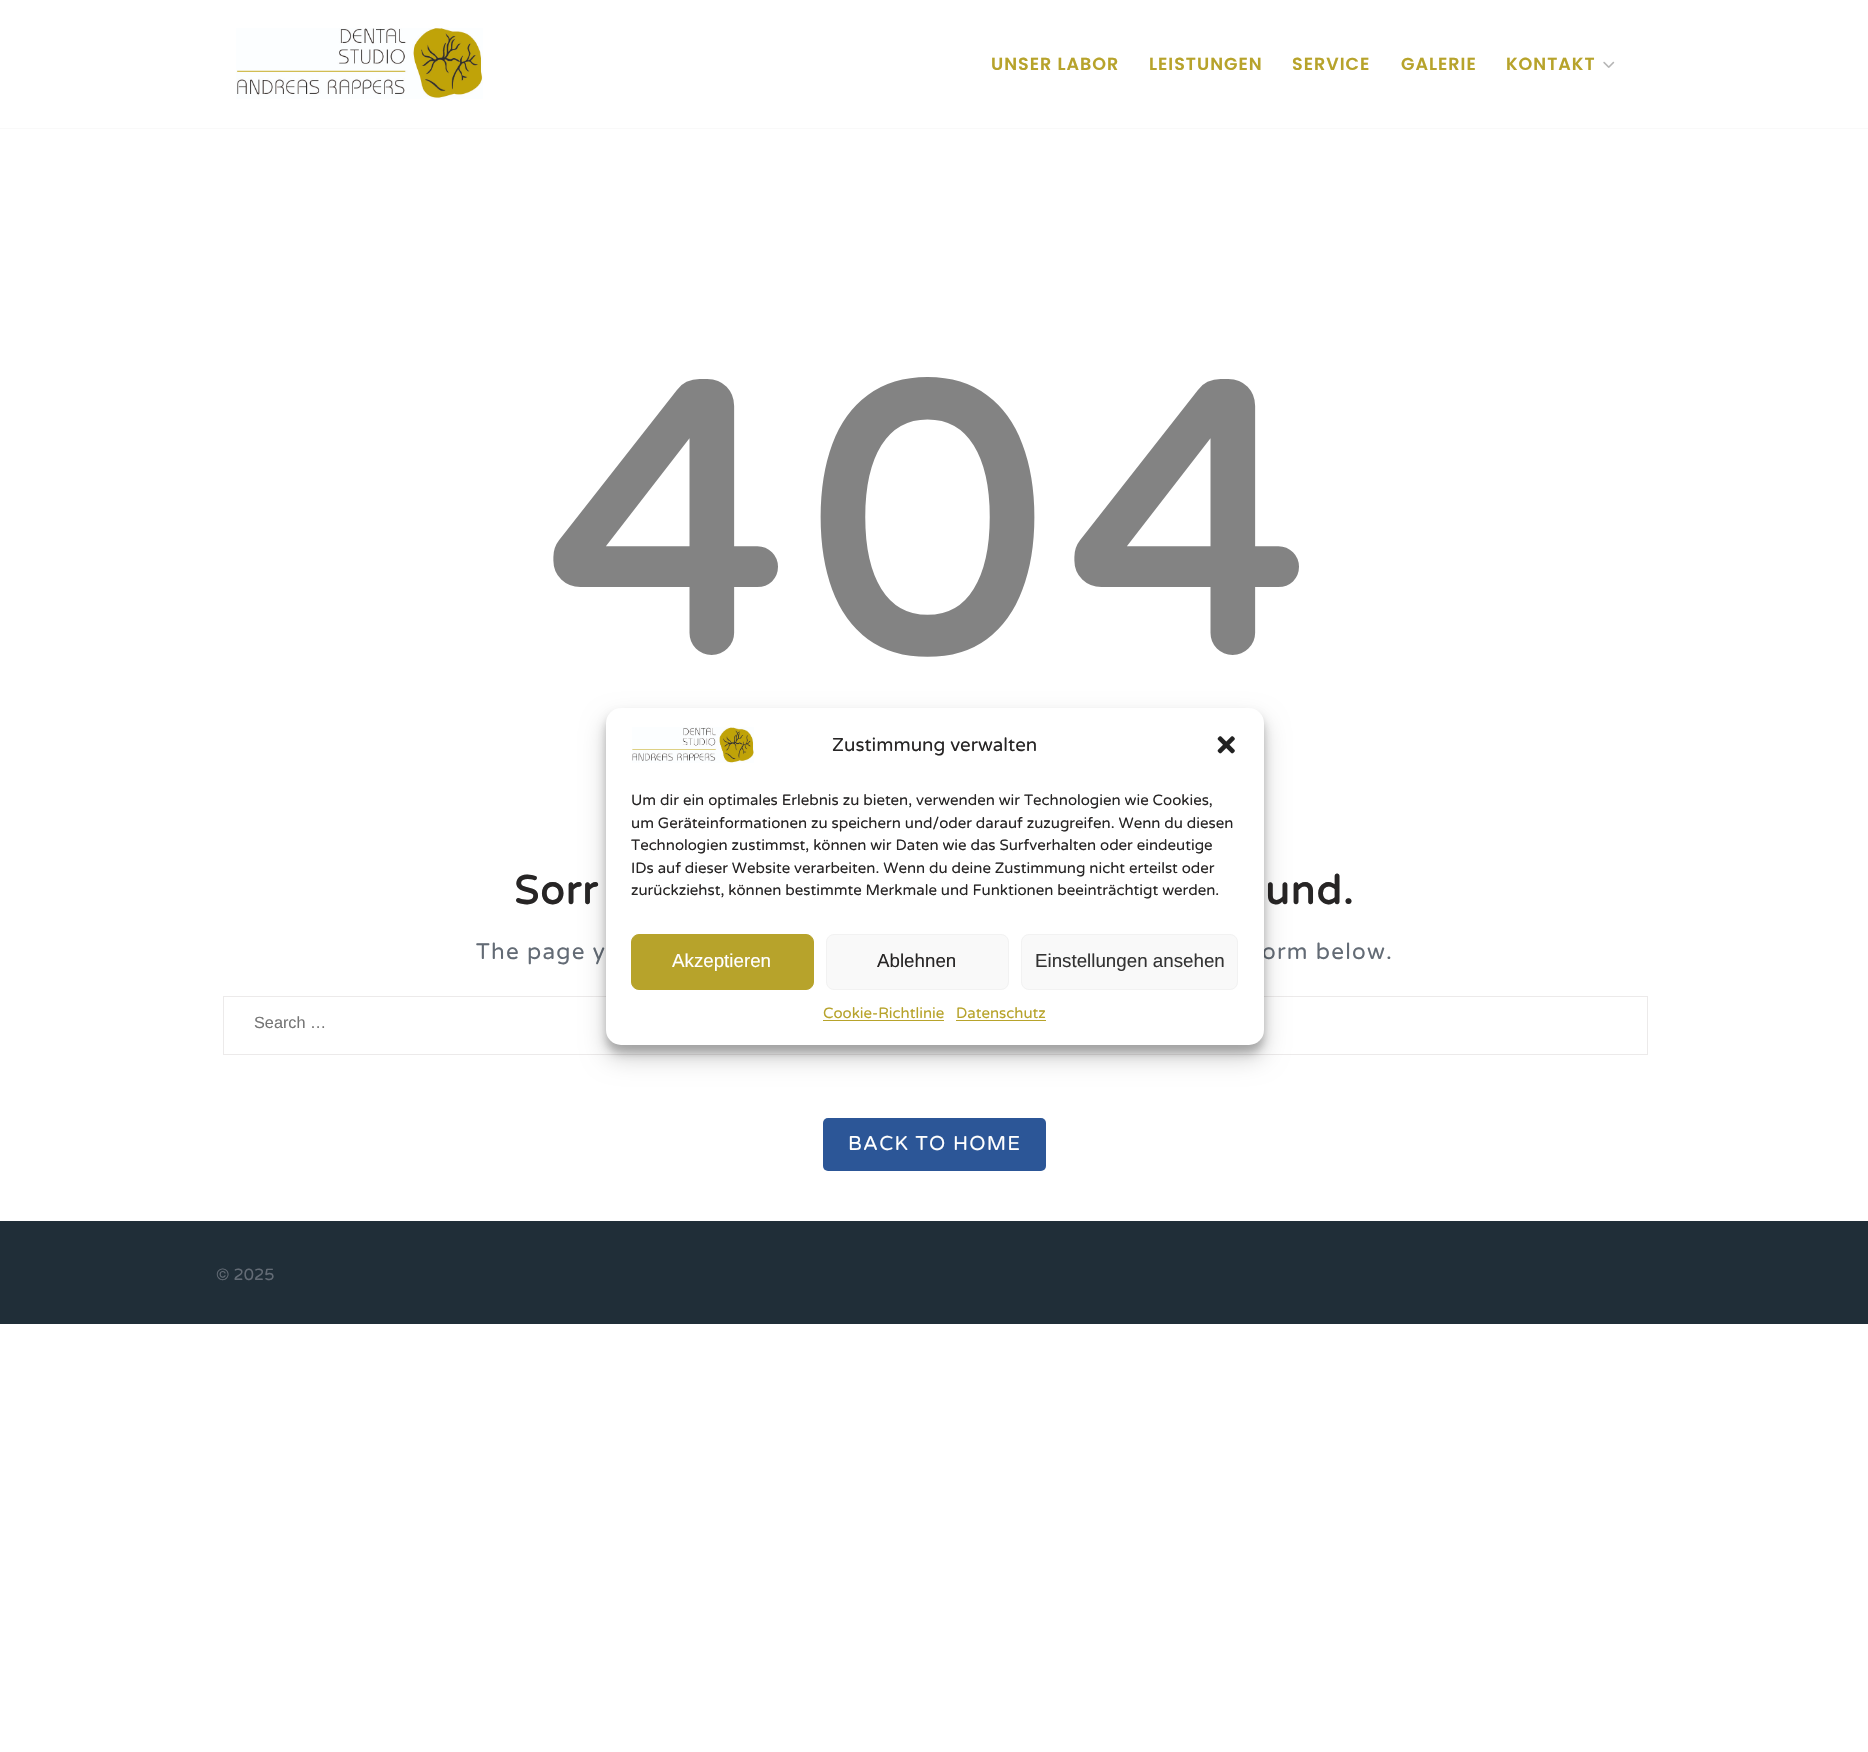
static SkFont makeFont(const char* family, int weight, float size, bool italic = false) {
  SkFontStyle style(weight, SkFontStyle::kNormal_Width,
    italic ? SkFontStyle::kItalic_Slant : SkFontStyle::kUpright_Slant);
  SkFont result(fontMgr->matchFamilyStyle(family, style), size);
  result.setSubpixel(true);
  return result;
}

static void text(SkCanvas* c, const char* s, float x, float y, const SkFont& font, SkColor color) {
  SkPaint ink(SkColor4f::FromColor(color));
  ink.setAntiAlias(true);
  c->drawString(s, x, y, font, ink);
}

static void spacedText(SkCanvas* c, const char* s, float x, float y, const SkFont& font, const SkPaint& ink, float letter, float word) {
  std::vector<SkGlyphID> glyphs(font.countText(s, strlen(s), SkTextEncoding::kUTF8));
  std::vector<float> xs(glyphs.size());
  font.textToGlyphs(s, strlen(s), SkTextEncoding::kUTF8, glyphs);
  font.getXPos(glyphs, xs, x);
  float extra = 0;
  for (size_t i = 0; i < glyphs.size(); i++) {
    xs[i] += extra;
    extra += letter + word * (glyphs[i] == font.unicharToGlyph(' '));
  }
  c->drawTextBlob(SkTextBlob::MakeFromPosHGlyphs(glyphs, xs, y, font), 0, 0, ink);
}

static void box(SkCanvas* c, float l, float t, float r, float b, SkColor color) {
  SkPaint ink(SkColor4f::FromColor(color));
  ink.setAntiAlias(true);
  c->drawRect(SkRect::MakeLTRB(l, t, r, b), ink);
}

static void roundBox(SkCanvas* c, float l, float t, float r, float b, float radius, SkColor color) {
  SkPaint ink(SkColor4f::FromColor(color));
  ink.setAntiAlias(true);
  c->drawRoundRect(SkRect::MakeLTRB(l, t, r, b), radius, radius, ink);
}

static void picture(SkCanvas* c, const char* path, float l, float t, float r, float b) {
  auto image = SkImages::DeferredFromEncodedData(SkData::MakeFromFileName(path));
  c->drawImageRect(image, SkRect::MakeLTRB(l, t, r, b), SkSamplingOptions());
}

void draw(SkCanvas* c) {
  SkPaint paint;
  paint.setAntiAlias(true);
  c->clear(0xffffffff);
  box(c, 0, 128, 1868, 129, 0xfff9f9f9);
  picture(c, "img_01.png", 236, 28, 483, 99);
  SkFont face1 = makeFont("Poppins", 600, 17.5f);
  paint.setColor(0xffb7a32b);
  spacedText(c, "UNSER LABOR", 991, 70, face1, paint, 1, 0);
  spacedText(c, "LEISTUNGEN", 1149, 70, face1, paint, 1, 0);
  spacedText(c, "SERVICE", 1292, 70, face1, paint, 1, 0);
  spacedText(c, "GALERIE", 1401, 70, face1, paint, 1, 0);
  spacedText(c, "KONTAKT", 1506, 70, face1, paint, 1, 0);
  picture(c, "img_02.png", 1603, 61, 1615, 68);
  SkFont face2 = makeFont("Varela Round", 700, 375);
  paint.setColor(0xff838383);
  spacedText(c, "404", 544, 653, face2, paint, 25, 0);
  SkFont face3 = makeFont("Varela Round", 700, 40);
  paint.setColor(0xff272525);
  spacedText(c, "Sorr", 514, 904, face3, paint, 1.25f, 0);
  spacedText(c, "und.", 1265, 904, face3, paint, 1.25f, 0);
  SkFont face4 = makeFont("Varela Round", 400, 22.5f);
  paint.setColor(0xff636b75);
  spacedText(c, "The page y", 476, 959, face4, paint, 1.25f, 0);
  spacedText(c, "orm below.", 1262, 959, face4, paint, 1.25f, 0);
  paint.setStyle(SkPaint::kStroke_Style);
  paint.setStrokeWidth(1);
  paint.setColor(0xffeceaea);
  c->drawRect(SkRect::MakeLTRB(223.5f, 996.5f, 1647.5f, 1054.5f), paint);
  SkFont face5 = makeFont("Liberation Sans", 400, 16.25f);
  text(c, "Search …", 254, 1028, face5, 0xff757575);
  roundBox(c, 823, 1118, 1046, 1171, 5, 0xff2c5697);
  SkFont face6 = makeFont("Varela Round", 400, 20);
  paint.setStyle(SkPaint::kFill_Style);
  paint.setColor(0xffffffff);
  spacedText(c, "BACK TO HOME", 848, 1150, face6, paint, 1.25f, 0);
  box(c, 0, 1221, 1868, 1324, 0xff202e38);
  SkFont face7 = makeFont("Varela Round", 400, 16.25f);
  text(c, "© 2025", 216, 1280, face7, 0xff636b75);
  paint.setColor(0x3b000000);
  paint.setMaskFilter(SkMaskFilter::MakeBlur(kNormal_SkBlurStyle, 4));
  c->drawRoundRect(SkRect::MakeLTRB(606, 715, 1264, 1053), 15, 15, paint);
  paint.setMaskFilter(nullptr);
  paint.setColor(0x30000000);
  paint.setMaskFilter(SkMaskFilter::MakeBlur(kNormal_SkBlurStyle, 12.5f));
  c->drawRoundRect(SkRect::MakeLTRB(606, 720, 1264, 1058), 15, 15, paint);
  paint.setMaskFilter(nullptr);
  roundBox(c, 606, 708, 1264, 1045, 15, 0xffffffff);
  picture(c, "img_03.png", 632, 727, 754, 763);
  SkFont face8 = makeFont("Varela Round", 400, 18.75f);
  text(c, "Zustimmung verwalten", 832, 751, face8, 0xff272525);
  picture(c, "img_04.png", 1217, 736, 1235, 754);
  SkFont face9 = makeFont("Varela Round", 400, 15);
  text(c, "Um dir ein optimales Erlebnis zu bieten, verwenden wir Technologien wie Cookies,", 631, 805, face9, 0xff272525);
  text(c, "um Geräteinformationen zu speichern und/oder darauf zuzugreifen. Wenn du diesen", 631, 828, face9, 0xff272525);
  text(c, "Technologien zustimmst, können wir Daten wie das Surfverhalten oder eindeutige", 631, 850, face9, 0xff272525);
  text(c, "IDs auf dieser Website verarbeiten. Wenn du deine Zustimmung nicht erteilst oder", 631, 873, face9, 0xff272525);
  text(c, "zurückziehst, können bestimmte Merkmale und Funktionen beeinträchtigt werden.", 631, 895, face9, 0xff272525);
  paint.setColor(0xffb7a32b);
  c->drawRoundRect(SkRect::MakeLTRB(631.5f, 934.5f, 813.5f, 989.5f), 7.5f, 7.5f, paint);
  paint.setStyle(SkPaint::kStroke_Style);
  c->drawRoundRect(SkRect::MakeLTRB(631.5f, 934.5f, 813.5f, 989.5f), 7.5f, 7.5f, paint);
  SkFont face10 = makeFont("Liberation Sans", 400, 18.75f);
  text(c, "Akzeptieren", 672, 967, face10, 0xffffffff);
  paint.setStyle(SkPaint::kFill_Style);
  paint.setColor(0xfff9f9f9);
  c->drawRoundRect(SkRect::MakeLTRB(826.5f, 934.5f, 1008.5f, 989.5f), 7.5f, 7.5f, paint);
  paint.setStyle(SkPaint::kStroke_Style);
  paint.setColor(0xfff2f2f2);
  c->drawRoundRect(SkRect::MakeLTRB(826.5f, 934.5f, 1008.5f, 989.5f), 7.5f, 7.5f, paint);
  text(c, "Ablehnen", 877, 967, face10, 0xff272525);
  paint.setStyle(SkPaint::kFill_Style);
  paint.setColor(0xfff9f9f9);
  c->drawRoundRect(SkRect::MakeLTRB(1021.5f, 934.5f, 1237.5f, 989.5f), 7.5f, 7.5f, paint);
  paint.setStyle(SkPaint::kStroke_Style);
  paint.setColor(0xfff2f2f2);
  c->drawRoundRect(SkRect::MakeLTRB(1021.5f, 934.5f, 1237.5f, 989.5f), 7.5f, 7.5f, paint);
  text(c, "Einstellungen ansehen", 1035, 967, face10, 0xff333333);
  text(c, "Cookie-Richtlinie", 823, 1018, face9, 0xffb7a32b);
  box(c, 823, 1020, 944, 1021, 0xffb7a32b);
  text(c, "Datenschutz", 956, 1018, face9, 0xffb7a32b);
  box(c, 956, 1020, 1046, 1021, 0xffb7a32b);
}
